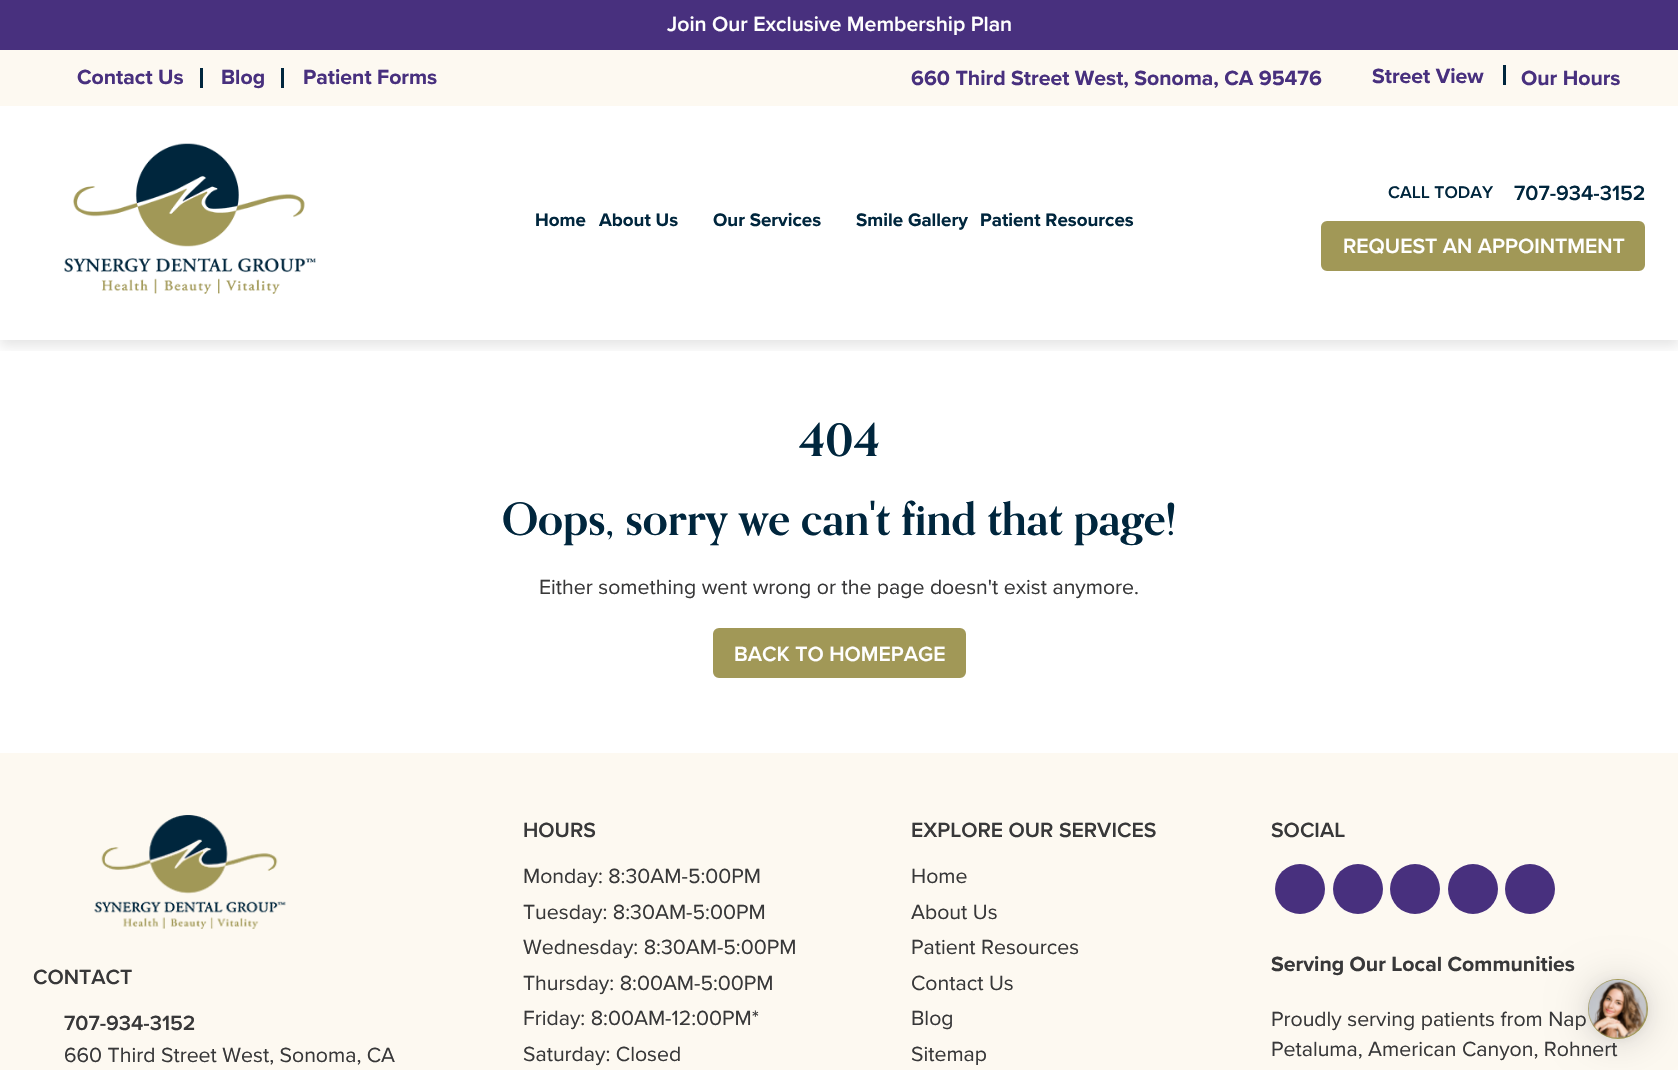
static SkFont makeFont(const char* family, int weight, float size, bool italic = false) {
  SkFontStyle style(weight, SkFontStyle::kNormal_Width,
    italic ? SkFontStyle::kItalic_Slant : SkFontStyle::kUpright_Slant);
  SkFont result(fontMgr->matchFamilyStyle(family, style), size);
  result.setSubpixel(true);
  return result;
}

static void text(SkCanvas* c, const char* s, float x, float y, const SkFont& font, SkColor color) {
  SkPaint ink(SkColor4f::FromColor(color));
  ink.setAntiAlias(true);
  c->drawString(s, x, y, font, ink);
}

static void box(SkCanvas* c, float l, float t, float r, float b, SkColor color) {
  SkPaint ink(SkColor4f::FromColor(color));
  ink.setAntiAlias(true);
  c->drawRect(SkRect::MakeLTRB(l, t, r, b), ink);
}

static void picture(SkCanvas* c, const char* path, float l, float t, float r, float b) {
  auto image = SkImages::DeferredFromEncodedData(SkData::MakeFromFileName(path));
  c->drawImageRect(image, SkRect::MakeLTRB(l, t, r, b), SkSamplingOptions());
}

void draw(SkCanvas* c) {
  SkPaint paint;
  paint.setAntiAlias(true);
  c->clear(0xffffffff);
  c->save();
  c->clipRect(SkRect::MakeLTRB(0, 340, 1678, 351));
  paint.setColor(0x1a000000);
  paint.setMaskFilter(SkMaskFilter::MakeBlur(kNormal_SkBlurStyle, 6));
  c->drawRect(SkRect::MakeLTRB(0, 6, 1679, 346), paint);
  paint.setMaskFilter(nullptr);
  c->restore();
  box(c, 0, 0, 1678, 50, 0xff48307e);
  SkFont face1 = makeFont("Proxima Nova", 600, 21.25f);
  text(c, "Join Our Exclusive Membership Plan", 667, 31, face1, 0xffffffff);
  box(c, 0, 50, 1678, 106, 0xfffdf9f1);
  SkFont face2 = makeFont("Proxima Nova", 700, 21.25f);
  text(c, "Contact Us", 77, 84, face2, 0xff48307e);
  box(c, 200, 68, 203, 88, 0xff00263d);
  text(c, "Blog", 221, 84, face2, 0xff48307e);
  box(c, 281, 68, 284, 88, 0xff00263d);
  text(c, "Patient Forms", 303, 84, face2, 0xff48307e);
  text(c, "660 Third Street West, Sonoma, CA 95476", 911, 85, face2, 0xff48307e);
  text(c, "Street View", 1372, 83, face2, 0xff48307e);
  box(c, 1503, 65, 1506, 85, 0xff00263d);
  text(c, "Our Hours", 1521, 85, face2, 0xff48307e);
  picture(c, "img_01.png", 64, 143, 316, 294);
  SkFont face3 = makeFont("Proxima Nova", 700, 18.75f);
  text(c, "Home", 535, 226, face3, 0xff00263d);
  text(c, "About Us", 599, 226, face3, 0xff00263d);
  text(c, "Our Services", 713, 226, face3, 0xff00263d);
  text(c, "Smile Gallery", 856, 226, face3, 0xff00263d);
  text(c, "Patient Resources", 980, 226, face3, 0xff00263d);
  SkFont face4 = makeFont("Proxima Nova", 600, 17.5f);
  text(c, "CALL TODAY", 1388, 198, face4, 0xff00263d);
  text(c, "707-934-3152", 1514, 200, face1, 0xff00263d);
  paint.setColor(0xffa19857);
  c->drawRoundRect(SkRect::MakeLTRB(1322.5f, 222.5f, 1643.5f, 269.5f), 4.5f, 4.5f, paint);
  paint.setStyle(SkPaint::kStroke_Style);
  paint.setStrokeWidth(3);
  c->drawRoundRect(SkRect::MakeLTRB(1322.5f, 222.5f, 1643.5f, 269.5f), 4.5f, 4.5f, paint);
  text(c, "REQUEST AN APPOINTMENT", 1343, 253, face1, 0xffffffff);
  SkFont face5 = makeFont("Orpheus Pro", 700, 45);
  text(c, "404", 799, 456, face5, 0xff00263d);
  text(c, "Oops, sorry we can't find that page!", 502, 535, face5, 0xff00263d);
  SkFont face6 = makeFont("Proxima Nova", 400, 21.25f);
  text(c, "Either something went wrong or the page doesn't exist anymore.", 539, 594, face6, 0xff383839);
  paint.setStyle(SkPaint::kFill_Style);
  c->drawRoundRect(SkRect::MakeLTRB(714.5f, 629.5f, 964.5f, 676.5f), 4.5f, 4.5f, paint);
  paint.setStyle(SkPaint::kStroke_Style);
  c->drawRoundRect(SkRect::MakeLTRB(714.5f, 629.5f, 964.5f, 676.5f), 4.5f, 4.5f, paint);
  text(c, "BACK TO HOMEPAGE", 734, 661, face1, 0xffffffff);
  box(c, 0, 753, 1678, 1070, 0xfffdf9f1);
  picture(c, "img_02.png", 94, 815, 286, 929);
  text(c, "CONTACT", 33, 984, face1, 0xff383839);
  text(c, "707-934-3152", 64, 1030, face1, 0xff383839);
  text(c, "660 Third Street West, Sonoma, CA", 64, 1062, face6, 0xff383839);
  text(c, "HOURS", 523, 837, face1, 0xff383839);
  text(c, "Monday: 8:30AM-5:00PM", 523, 883, face6, 0xff383839);
  text(c, "Tuesday: 8:30AM-5:00PM", 523, 919, face6, 0xff383839);
  text(c, "Wednesday: 8:30AM-5:00PM", 523, 954, face6, 0xff383839);
  text(c, "Thursday: 8:00AM-5:00PM", 523, 990, face6, 0xff383839);
  text(c, "Friday: 8:00AM-12:00PM*", 523, 1025, face6, 0xff383839);
  text(c, "Saturday: Closed", 523, 1061, face6, 0xff383839);
  text(c, "EXPLORE OUR SERVICES", 911, 837, face1, 0xff383839);
  text(c, "Home", 911, 883, face6, 0xff383839);
  text(c, "About Us", 911, 919, face6, 0xff383839);
  text(c, "Patient Resources", 911, 954, face6, 0xff383839);
  text(c, "Contact Us", 911, 990, face6, 0xff383839);
  text(c, "Blog", 911, 1025, face6, 0xff383839);
  text(c, "Sitemap", 911, 1061, face6, 0xff383839);
  text(c, "SOCIAL", 1271, 837, face1, 0xff383839);
  paint.setStyle(SkPaint::kFill_Style);
  paint.setColor(0xff48307e);
  c->drawCircle(1300, 889, 25, paint);
  c->drawCircle(1358, 889, 25, paint);
  c->drawCircle(1415, 889, 25, paint);
  c->drawCircle(1473, 889, 25, paint);
  c->drawCircle(1530, 889, 25, paint);
  text(c, "Serving Our Local Communities", 1271, 971, face2, 0xff383839);
  text(c, "Proudly serving patients from Nap", 1271, 1026, face6, 0xff383839);
  text(c, "Petaluma, American Canyon, Rohnert", 1271, 1056, face6, 0xff383839);
  paint.setColor(0x29000000);
  paint.setMaskFilter(SkMaskFilter::MakeBlur(kNormal_SkBlurStyle, 20));
  c->drawRoundRect(SkRect::MakeLTRB(1588, 981, 1648, 1041), 30, 30, paint);
  paint.setMaskFilter(nullptr);
  paint.setColor(0x0f000000);
  paint.setMaskFilter(SkMaskFilter::MakeBlur(kNormal_SkBlurStyle, 4));
  c->drawRoundRect(SkRect::MakeLTRB(1588, 980, 1648, 1040), 30, 30, paint);
  paint.setMaskFilter(nullptr);
  paint.setColor(0xffa19857);
  c->drawCircle(1618, 1009, 30, paint);
  picture(c, "img_03.png", 1588, 980, 1647, 1038);
}
